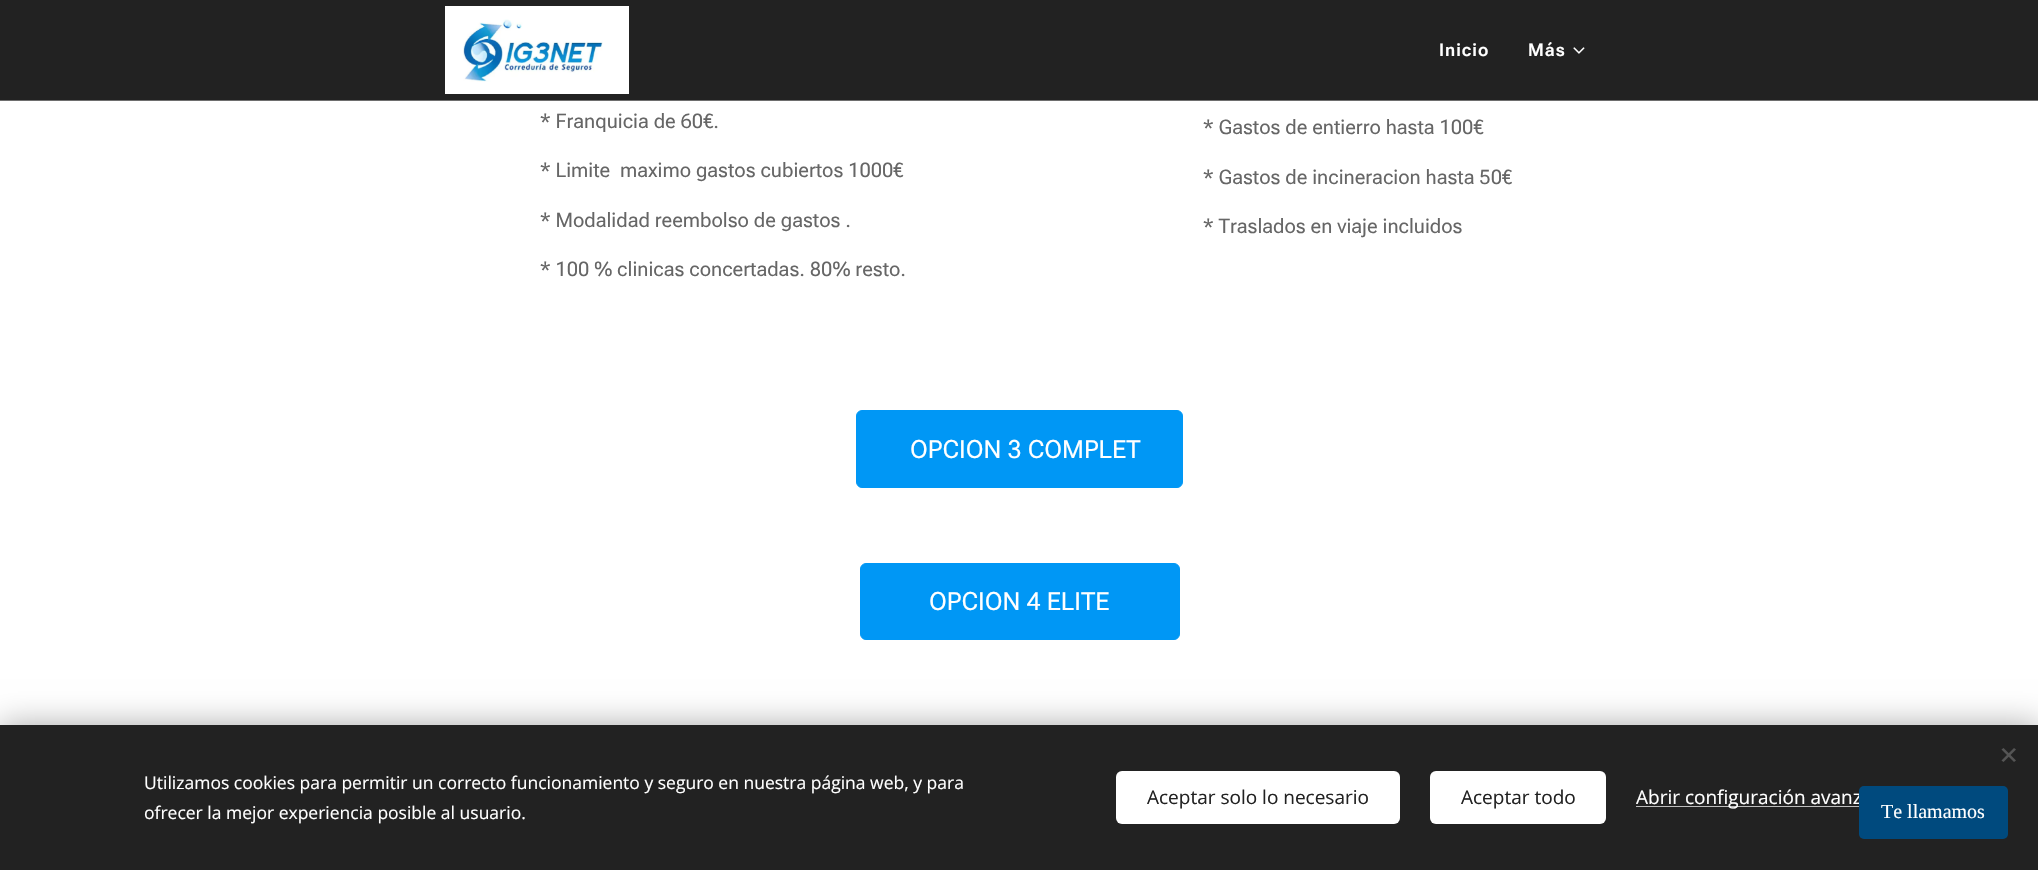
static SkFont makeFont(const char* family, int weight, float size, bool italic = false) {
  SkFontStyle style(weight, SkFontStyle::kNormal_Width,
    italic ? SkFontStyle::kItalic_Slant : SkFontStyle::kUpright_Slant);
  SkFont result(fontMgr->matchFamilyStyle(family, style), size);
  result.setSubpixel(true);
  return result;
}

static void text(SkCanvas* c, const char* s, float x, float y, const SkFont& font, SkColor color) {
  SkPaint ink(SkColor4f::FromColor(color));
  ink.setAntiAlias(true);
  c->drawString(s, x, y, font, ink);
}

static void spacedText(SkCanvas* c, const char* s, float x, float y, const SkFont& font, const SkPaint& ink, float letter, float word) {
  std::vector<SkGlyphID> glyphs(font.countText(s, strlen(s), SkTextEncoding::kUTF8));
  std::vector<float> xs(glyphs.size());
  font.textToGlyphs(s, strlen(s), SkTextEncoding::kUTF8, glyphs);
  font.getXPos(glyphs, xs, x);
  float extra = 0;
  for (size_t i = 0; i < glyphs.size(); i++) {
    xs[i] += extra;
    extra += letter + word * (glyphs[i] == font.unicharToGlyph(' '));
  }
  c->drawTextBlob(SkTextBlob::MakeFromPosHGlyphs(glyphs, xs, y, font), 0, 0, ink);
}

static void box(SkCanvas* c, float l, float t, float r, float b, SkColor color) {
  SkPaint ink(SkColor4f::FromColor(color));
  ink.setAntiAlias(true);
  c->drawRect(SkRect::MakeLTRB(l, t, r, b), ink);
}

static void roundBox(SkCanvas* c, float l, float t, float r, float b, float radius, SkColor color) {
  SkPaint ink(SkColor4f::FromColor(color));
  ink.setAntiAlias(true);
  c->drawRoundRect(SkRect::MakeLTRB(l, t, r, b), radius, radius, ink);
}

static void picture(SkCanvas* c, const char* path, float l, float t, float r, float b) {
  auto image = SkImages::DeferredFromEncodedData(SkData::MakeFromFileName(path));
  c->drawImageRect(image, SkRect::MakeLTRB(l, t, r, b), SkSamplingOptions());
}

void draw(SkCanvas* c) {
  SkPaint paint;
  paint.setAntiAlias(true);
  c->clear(0xffffffff);
  box(c, 0, 0, 2038, 100, 0xff222222);
  box(c, 0, 100, 2038, 101, 0xff6e6e6e);
  box(c, 445, 6, 629, 94, 0xffffffff);
  picture(c, "img_01.png", 463, 19, 603, 82);
  SkFont face1 = makeFont("Roboto Flex", 600, 17.5f);
  paint.setColor(0xffffffff);
  spacedText(c, "Inicio", 1439, 56, face1, paint, 1, 0);
  spacedText(c, "Más", 1528, 56, face1, paint, 1, 0);
  picture(c, "img_02.png", 1573, 47, 1585, 54);
  SkFont face2 = makeFont("Roboto Flex", 400, 20);
  text(c, "* Franquicia de 60€.", 540, 128, face2, 0xff666666);
  text(c, "* Limite  maximo gastos cubiertos 1000€", 540, 177, face2, 0xff666666);
  text(c, "* Modalidad reembolso de gastos .", 540, 227, face2, 0xff666666);
  text(c, "* 100 % clinicas concertadas. 80% resto.", 540, 276, face2, 0xff666666);
  text(c, "* Gastos de entierro hasta 100€", 1203, 134, face2, 0xff666666);
  text(c, "* Gastos de incineracion hasta 50€", 1203, 184, face2, 0xff666666);
  text(c, "* Traslados en viaje incluidos", 1203, 233, face2, 0xff666666);
  paint.setColor(0xff0097f5);
  c->drawRoundRect(SkRect::MakeLTRB(856.5f, 410.5f, 1182.5f, 487.5f), 5.5f, 5.5f, paint);
  paint.setStyle(SkPaint::kStroke_Style);
  paint.setStrokeWidth(1);
  c->drawRoundRect(SkRect::MakeLTRB(856.5f, 410.5f, 1182.5f, 487.5f), 5.5f, 5.5f, paint);
  SkFont face3 = makeFont("Roboto Flex", 400, 25);
  text(c, "OPCION 3 COMPLET", 910, 458, face3, 0xffffffff);
  paint.setStyle(SkPaint::kFill_Style);
  c->drawRoundRect(SkRect::MakeLTRB(860.5f, 563.5f, 1179.5f, 639.5f), 5.5f, 5.5f, paint);
  paint.setStyle(SkPaint::kStroke_Style);
  c->drawRoundRect(SkRect::MakeLTRB(860.5f, 563.5f, 1179.5f, 639.5f), 5.5f, 5.5f, paint);
  text(c, "OPCION 4 ELITE", 929, 610, face3, 0xffffffff);
  paint.setStyle(SkPaint::kFill_Style);
  paint.setColor(0x54000000);
  paint.setMaskFilter(SkMaskFilter::MakeBlur(kNormal_SkBlurStyle, 15.5f));
  c->drawRect(SkRect::MakeLTRB(0, 725, 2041, 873), paint);
  paint.setMaskFilter(nullptr);
  box(c, 0, 725, 2038, 870, 0xff222222);
  paint.setColor(0xff555555);
  c->drawPath(SkPathBuilder().moveTo(2001.5f, 760.5f).lineTo(2014, 748).lineTo(2016, 749.5f).lineTo(2003.5f, 762).close().detach(), paint);
  c->drawPath(SkPathBuilder().moveTo(2003.5f, 748).lineTo(2016, 760.5f).lineTo(2014, 762).lineTo(2001.5f, 749.5f).close().detach(), paint);
  SkFont face4 = makeFont("Open Sans", 400, 17.5f);
  text(c, "Utilizamos cookies para permitir un correcto funcionamiento y seguro en nuestra página web, y para", 144, 789, face4, 0xffffffff);
  text(c, "ofrecer la mejor experiencia posible al usuario.", 144, 819, face4, 0xffffffff);
  roundBox(c, 1116, 771, 1400, 824, 6, 0xffffffff);
  SkFont face5 = makeFont("Open Sans", 400, 19);
  text(c, "Aceptar solo lo necesario", 1147, 804, face5, 0xff222222);
  roundBox(c, 1430, 771, 1606, 824, 6, 0xffffffff);
  text(c, "Aceptar todo", 1461, 804, face5, 0xff222222);
  box(c, 1636, 806, 1859, 807, 0xffbdbdbd);
  text(c, "Abrir configuración avanz", 1636, 804, face5, 0xffffffff);
  roundBox(c, 1859, 786, 2008, 839, 5, 0xff004a7e);
  SkFont face6 = makeFont("Liberation Serif", 400, 20);
  text(c, "Te llamamos", 1881, 818, face6, 0xffffffff);
}
